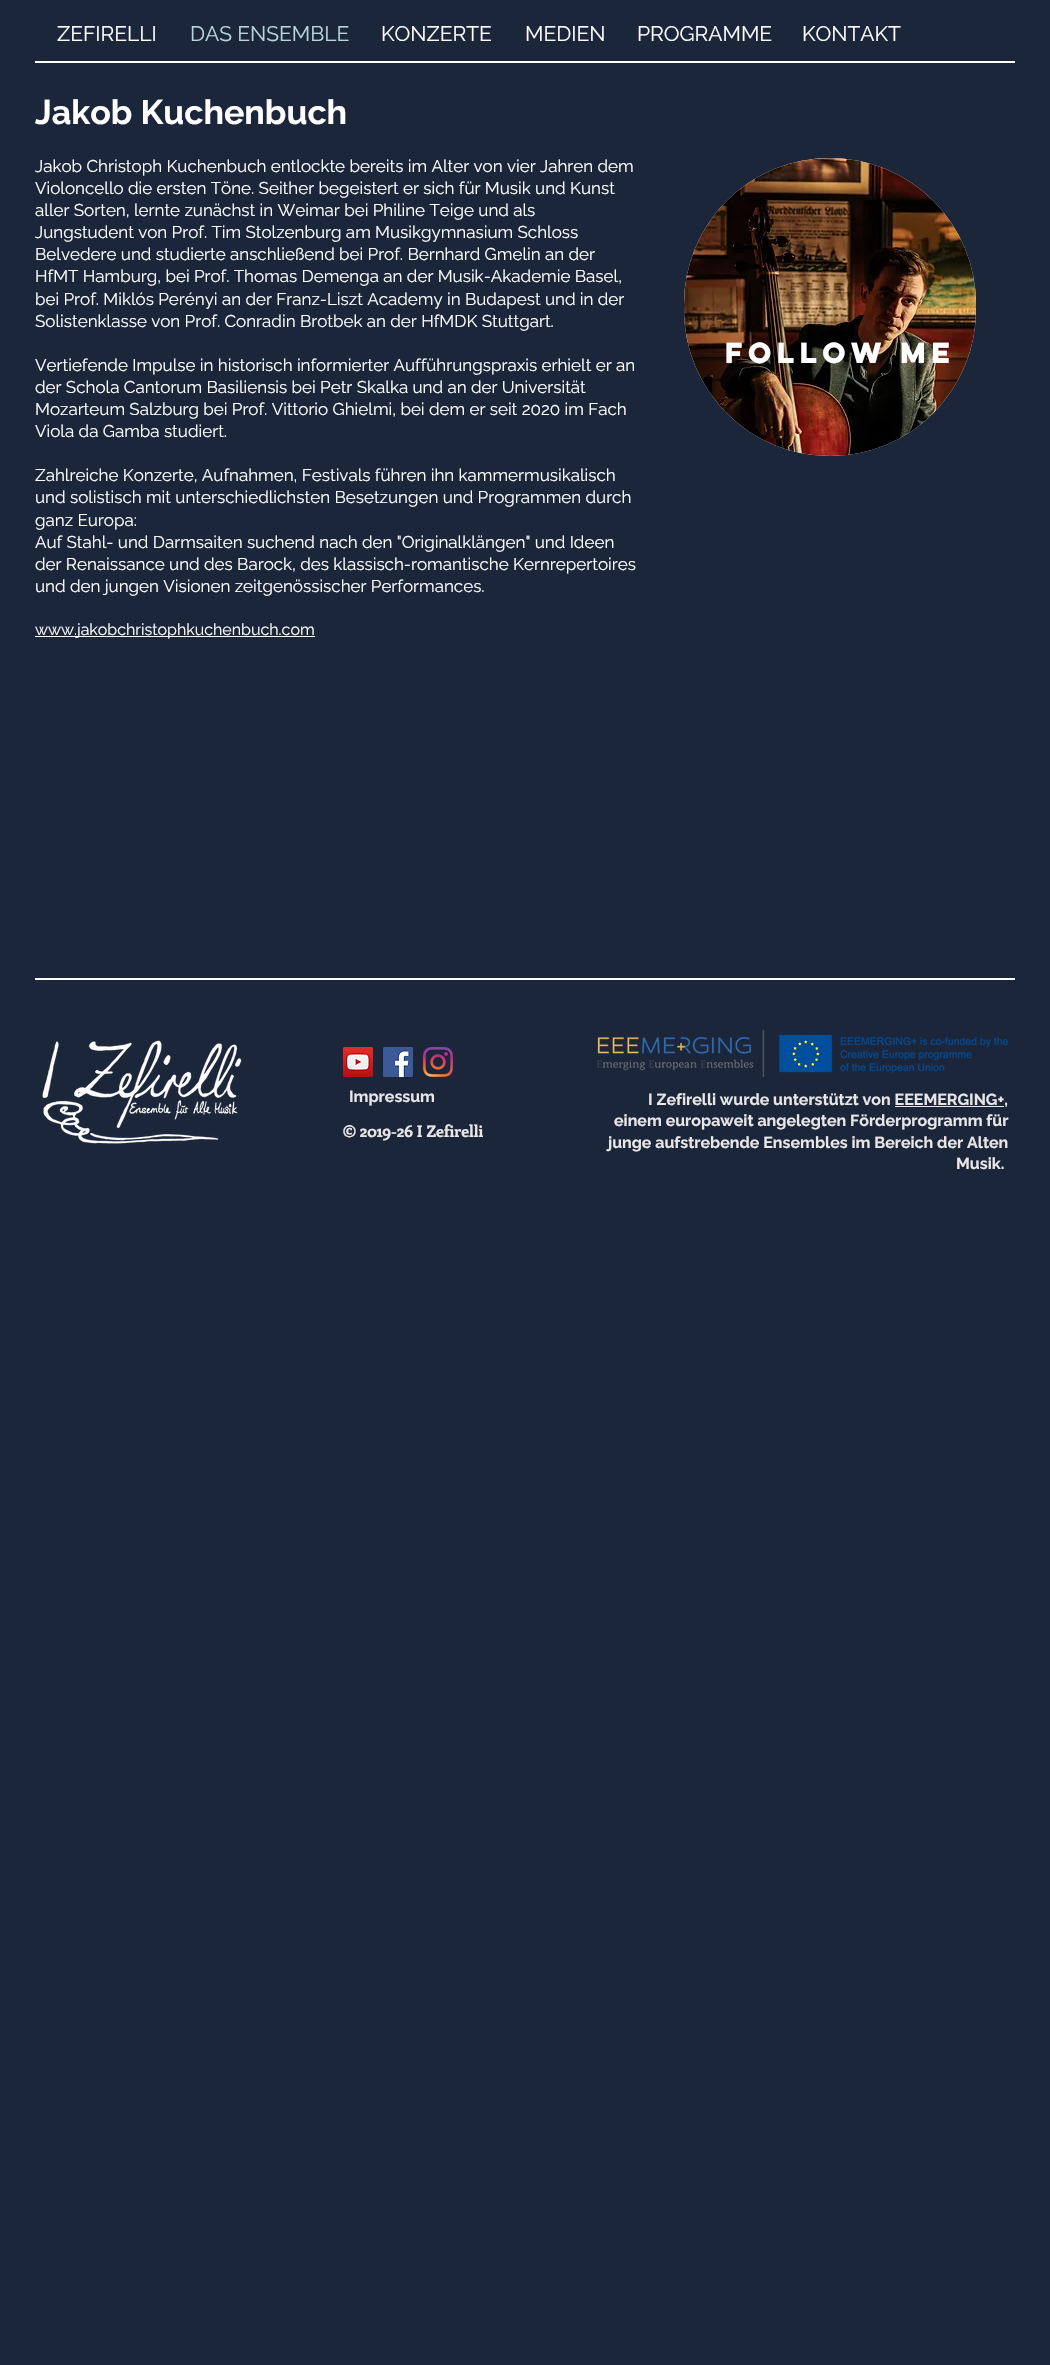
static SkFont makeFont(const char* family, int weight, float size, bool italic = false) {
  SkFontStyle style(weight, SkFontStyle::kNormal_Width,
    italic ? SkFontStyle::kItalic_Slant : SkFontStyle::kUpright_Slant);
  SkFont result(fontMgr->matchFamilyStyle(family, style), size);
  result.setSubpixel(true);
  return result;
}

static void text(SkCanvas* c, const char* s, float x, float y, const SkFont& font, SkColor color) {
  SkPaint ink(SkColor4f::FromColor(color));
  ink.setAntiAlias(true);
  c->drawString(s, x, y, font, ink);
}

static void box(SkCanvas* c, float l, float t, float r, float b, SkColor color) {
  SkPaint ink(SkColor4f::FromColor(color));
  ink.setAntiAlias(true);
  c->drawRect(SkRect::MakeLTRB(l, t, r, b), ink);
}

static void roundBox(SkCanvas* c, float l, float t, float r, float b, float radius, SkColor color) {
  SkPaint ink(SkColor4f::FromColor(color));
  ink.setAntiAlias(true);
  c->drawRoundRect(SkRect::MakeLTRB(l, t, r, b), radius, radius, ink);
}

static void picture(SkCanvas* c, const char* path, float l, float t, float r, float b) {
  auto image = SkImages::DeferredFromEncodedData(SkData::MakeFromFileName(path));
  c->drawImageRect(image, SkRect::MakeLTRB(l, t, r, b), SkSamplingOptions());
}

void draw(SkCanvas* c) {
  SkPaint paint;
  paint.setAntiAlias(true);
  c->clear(0xff1c263a);
  SkFont face1 = makeFont("Raleway", 400, 21);
  text(c, "ZEFIRELLI", 57, 41, face1, 0xffffffff);
  text(c, "DAS ENSEMBLE", 190, 41, face1, 0xffb9d5dd);
  text(c, "KONZERTE", 381, 41, face1, 0xffffffff);
  text(c, "MEDIEN", 525, 41, face1, 0xffffffff);
  text(c, "PROGRAMME", 637, 41, face1, 0xffffffff);
  text(c, "KONTAKT", 802, 41, face1, 0xffffffff);
  box(c, 35, 61, 1015, 63, 0xffffffff);
  SkFont face2 = makeFont("Raleway", 700, 34);
  text(c, "Jakob Kuchenbuch", 35, 124, face2, 0xffffffff);
  SkFont face3 = makeFont("Raleway", 400, 17);
  text(c, "Jakob Christoph Kuchenbuch entlockte bereits im Alter von vier Jahren dem", 35, 172, face3, 0xffffffff);
  text(c, "Violoncello die ersten Töne. Seither begeistert er sich für Musik und Kunst", 35, 194, face3, 0xffffffff);
  text(c, "aller Sorten, lernte zunächst in Weimar bei Philine Teige und als", 35, 216, face3, 0xffffffff);
  text(c, "Jungstudent von Prof. Tim Stolzenburg am Musikgymnasium Schloss", 35, 238, face3, 0xffffffff);
  text(c, "Belvedere und studierte anschließend bei Prof. Bernhard Gmelin an der", 35, 260, face3, 0xffffffff);
  text(c, "HfMT Hamburg, bei Prof. Thomas Demenga an der Musik-Akademie Basel,", 35, 282, face3, 0xffffffff);
  text(c, "bei Prof. Miklós Perényi an der Franz-Liszt Academy in Budapest und in der", 35, 305, face3, 0xffffffff);
  text(c, "Solistenklasse von Prof. Conradin Brotbek an der HfMDK Stuttgart.", 35, 327, face3, 0xffffffff);
  text(c, "Vertiefende Impulse in historisch informierter Aufführungspraxis erhielt er an", 35, 371, face3, 0xffffffff);
  text(c, "der Schola Cantorum Basiliensis bei Petr Skalka und an der Universität", 35, 393, face3, 0xffffffff);
  text(c, "Mozarteum Salzburg bei Prof. Vittorio Ghielmi, bei dem er seit 2020 im Fach", 35, 415, face3, 0xffffffff);
  text(c, "Viola da Gamba studiert.", 35, 437, face3, 0xffffffff);
  text(c, "Zahlreiche Konzerte, Aufnahmen, Festivals führen ihn kammermusikalisch", 35, 481, face3, 0xffffffff);
  text(c, "und solistisch mit unterschiedlichsten Besetzungen und Programmen durch", 35, 503, face3, 0xffffffff);
  text(c, "ganz Europa:", 35, 526, face3, 0xffffffff);
  text(c, "Auf Stahl- und Darmsaiten suchend nach den \"Originalklängen\" und Ideen", 35, 548, face3, 0xffffffff);
  text(c, "der Renaissance und des Barock, des klassisch-romantische Kernrepertoires", 35, 570, face3, 0xffffffff);
  text(c, "und den jungen Visionen zeitgenössischer Performances.", 35, 592, face3, 0xffffffff);
  box(c, 35, 636, 315, 637, 0xffffffff);
  SkFont face4 = makeFont("Raleway", 400, 16);
  text(c, "www.jakobchristophkuchenbuch.com", 35, 635, face4, 0xffffffff);
  roundBox(c, 684, 158, 976, 456, 146, 0xffffffff);
  picture(c, "img_01.png", 684, 158, 976, 456);
  SkFont face5 = makeFont("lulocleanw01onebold", 700, 26);
  text(c, "follow ME", 725, 363, face5, 0xffffffff);
  box(c, 35, 978, 1015, 980, 0xffffffff);
  picture(c, "img_02.png", 42, 1040, 242, 1144);
  picture(c, "img_03.png", 343, 1047, 373, 1077);
  picture(c, "img_04.png", 383, 1047, 413, 1077);
  picture(c, "img_05.png", 423, 1047, 453, 1077);
  picture(c, "img_06.png", 597, 1030, 1008, 1077);
  SkFont face6 = makeFont("Raleway", 700, 16);
  text(c, "Impressum", 349, 1102, face6, 0xffe8e6e6);
  text(c, "I Zefirelli wurde unterstützt von EEEMERGING+,", 648, 1105, face6, 0xffe8e6e6);
  box(c, 895, 1106, 1004, 1107, 0xffe8e6e6);
  text(c, "einem europaweit angelegten Förderprogramm für", 614, 1126, face6, 0xffe8e6e6);
  text(c, "junge aufstrebende Ensembles im Bereich der Alten", 608, 1148, face6, 0xffe8e6e6);
  text(c, "Musik.", 956, 1169, face6, 0xffe8e6e6);
  SkFont face7 = makeFont("Enriqueta", 700, 16);
  text(c, "© 2019-26 I Zefirelli", 343, 1137, face7, 0xffe8e6e6);
}
